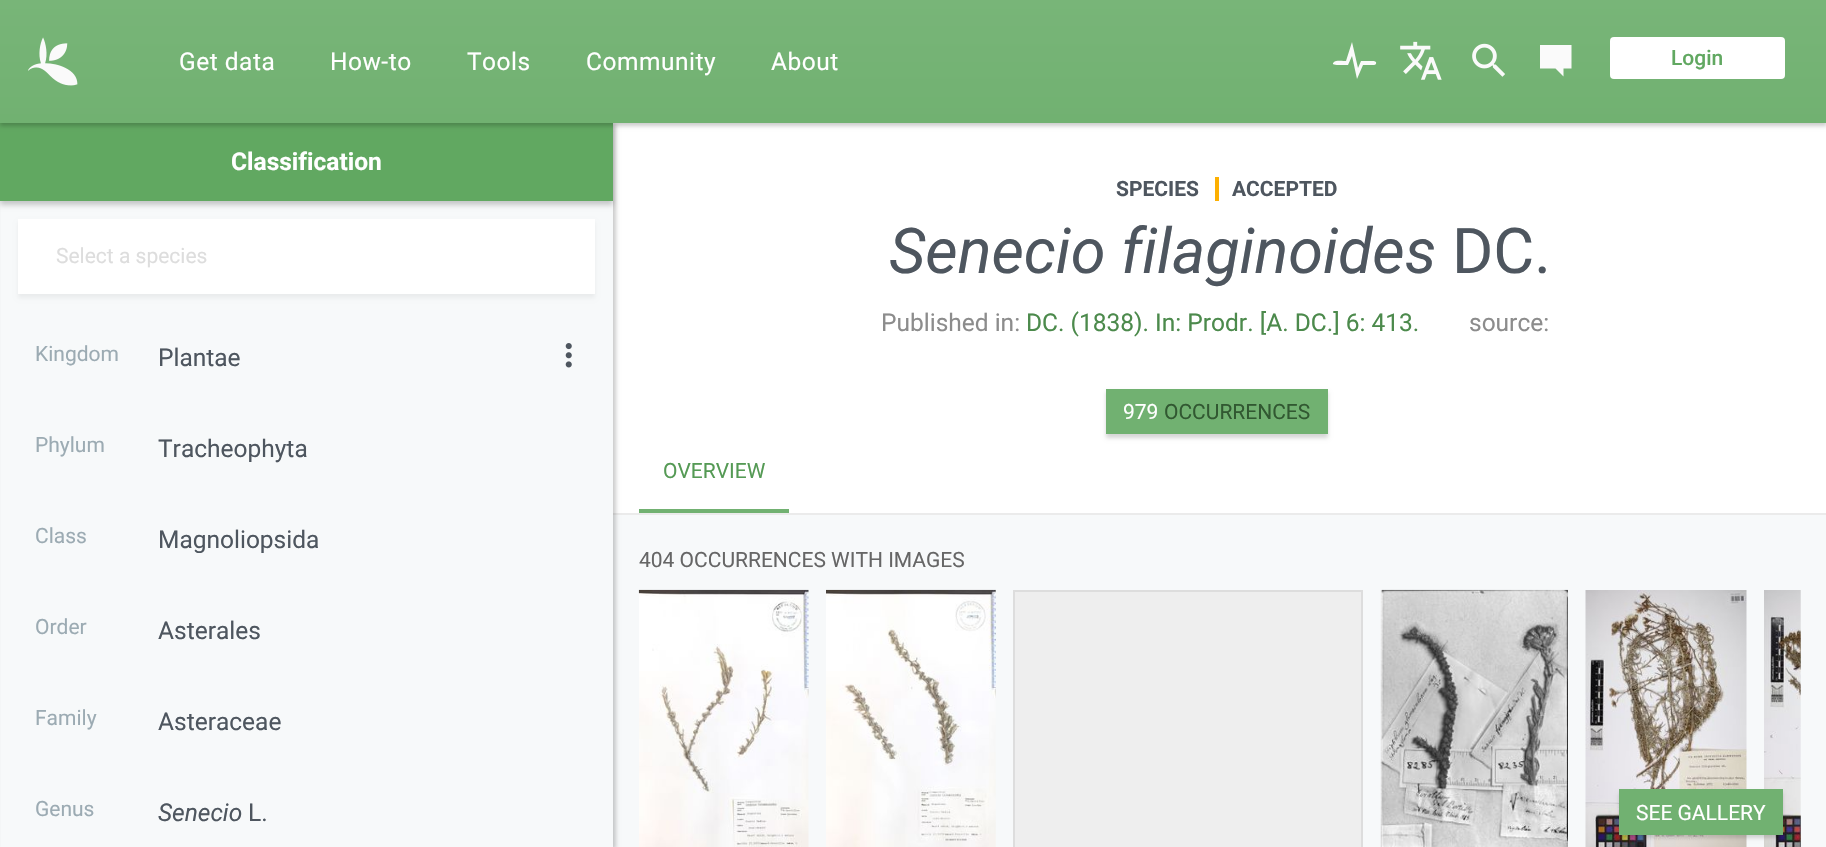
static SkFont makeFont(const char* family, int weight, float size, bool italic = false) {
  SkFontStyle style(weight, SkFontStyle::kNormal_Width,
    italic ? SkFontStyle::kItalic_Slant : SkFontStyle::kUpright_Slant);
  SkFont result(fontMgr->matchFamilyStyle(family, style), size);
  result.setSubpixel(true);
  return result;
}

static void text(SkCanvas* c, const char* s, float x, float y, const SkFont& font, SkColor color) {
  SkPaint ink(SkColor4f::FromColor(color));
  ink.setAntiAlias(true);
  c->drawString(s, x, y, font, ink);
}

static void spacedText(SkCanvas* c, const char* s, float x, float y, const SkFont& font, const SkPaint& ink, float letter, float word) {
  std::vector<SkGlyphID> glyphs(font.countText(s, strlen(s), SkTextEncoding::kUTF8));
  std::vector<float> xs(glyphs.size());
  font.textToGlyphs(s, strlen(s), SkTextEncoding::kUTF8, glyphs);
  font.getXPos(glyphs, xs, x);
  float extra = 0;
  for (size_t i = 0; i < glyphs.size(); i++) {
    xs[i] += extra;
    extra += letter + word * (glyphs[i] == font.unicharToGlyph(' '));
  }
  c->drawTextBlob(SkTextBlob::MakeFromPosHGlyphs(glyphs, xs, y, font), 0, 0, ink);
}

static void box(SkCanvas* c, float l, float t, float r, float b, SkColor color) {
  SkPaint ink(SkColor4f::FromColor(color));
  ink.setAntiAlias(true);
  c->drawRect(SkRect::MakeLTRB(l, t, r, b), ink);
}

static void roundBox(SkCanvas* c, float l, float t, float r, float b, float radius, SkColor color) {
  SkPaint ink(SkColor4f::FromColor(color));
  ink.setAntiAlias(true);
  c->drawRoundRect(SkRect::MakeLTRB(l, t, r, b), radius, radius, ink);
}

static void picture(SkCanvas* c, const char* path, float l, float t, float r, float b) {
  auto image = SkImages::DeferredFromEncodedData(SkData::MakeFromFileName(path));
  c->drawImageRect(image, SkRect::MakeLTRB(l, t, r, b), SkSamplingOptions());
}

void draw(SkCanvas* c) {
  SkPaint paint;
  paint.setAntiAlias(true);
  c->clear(0xfff7f9fa);
  box(c, 613, 123, 1826, 513, 0xffffffff);
  box(c, 613, 513, 1826, 515, 0xffebebeb);
  paint.setColor(0x33000000);
  paint.setMaskFilter(SkMaskFilter::MakeBlur(kNormal_SkBlurStyle, 2));
  c->drawRect(SkRect::MakeLTRB(4, 124, 616, 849), paint);
  paint.setMaskFilter(nullptr);
  box(c, 1, 201, 613, 847, 0xfff7f9fa);
  paint.setMaskFilter(SkMaskFilter::MakeBlur(kNormal_SkBlurStyle, 2.5f));
  c->drawRect(SkRect::MakeLTRB(0, 126, 613, 205), paint);
  paint.setMaskFilter(nullptr);
  box(c, 0, 123, 613, 201, 0xff61a861);
  paint.setMaskFilter(SkMaskFilter::MakeBlur(kNormal_SkBlurStyle, 2));
  c->drawRect(SkRect::MakeLTRB(0, 4, 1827, 126), paint);
  paint.setMaskFilter(nullptr);
  {
    const SkColor colors[] = {0xff78b578, 0xff71b171};
    const float stops[] = {0, 1};
    const SkPoint ends[] = {{914, 0}, {914, 123}};
    paint.setShader(SkGradientShader::MakeLinear(ends, colors, stops, 2, SkTileMode::kClamp));
    paint.setAlpha(255);
  }
  c->drawRect(SkRect::MakeLTRB(0, 0, 1826, 123), paint);
  picture(c, "img_01.png", 28, 37, 78, 86);
  SkFont face1 = makeFont("Roboto", 400, 24.5f);
  paint.setShader(nullptr);
  paint.setColor(0xffffffff);
  spacedText(c, "Get data", 179, 70, face1, paint, 0.5f, 0);
  spacedText(c, "How-to", 330, 70, face1, paint, 0.5f, 0);
  spacedText(c, "Tools", 467, 70, face1, paint, 0.5f, 0);
  spacedText(c, "Community", 586, 70, face1, paint, 0.5f, 0);
  spacedText(c, "About", 771, 70, face1, paint, 0.5f, 0);
  paint.setColor(0xfffafafa);
  c->drawPath(SkPathBuilder().moveTo(1374, 61).lineTo(1361, 61).lineTo(1358, 68).lineTo(1352, 42).lineTo(1346, 61).cubicTo(1344, 61, 1335, 60, 1334, 62).cubicTo(1329, 66, 1342, 65, 1348, 65).lineTo(1352, 56).lineTo(1357, 79).lineTo(1363, 65).lineTo(1371, 65).cubicTo(1372, 65, 1377, 66, 1376, 62).close().detach(), paint);
  picture(c, "img_02.png", 1400, 41, 1442, 80);
  picture(c, "img_03.png", 1472, 43, 1505, 77);
  c->drawPath(SkPathBuilder().moveTo(1540, 45).lineTo(1571.5f, 45).lineTo(1571.5f, 68.5f).lineTo(1563.5f, 68.5f).lineTo(1563.5f, 76.5f).lineTo(1555.5f, 68.5f).lineTo(1540, 68.5f).close().detach(), paint);
  roundBox(c, 1610, 37, 1785, 79, 4, 0xffffffff);
  SkFont face2 = makeFont("Roboto", 500, 21);
  text(c, "Login", 1671, 65, face2, 0xff61a861);
  SkFont face3 = makeFont("Roboto", 700, 24.5f);
  text(c, "Classification", 231, 170, face3, 0xffffffff);
  paint.setColor(0x0d000000);
  paint.setMaskFilter(SkMaskFilter::MakeBlur(kNormal_SkBlurStyle, 2));
  c->drawRect(SkRect::MakeLTRB(18, 222, 595, 298), paint);
  paint.setMaskFilter(nullptr);
  box(c, 18, 219, 595, 294, 0xffffffff);
  SkFont face4 = makeFont("Roboto", 400, 21);
  text(c, "Select a species", 56, 263, face4, 0xffdddddd);
  text(c, "Kingdom", 35, 361, face4, 0xff9cabb3);
  text(c, "Plantae", 158, 366, face1, 0xff4e565f);
  picture(c, "img_04.png", 565, 343, 572, 368);
  text(c, "Phylum", 35, 452, face4, 0xff9cabb3);
  text(c, "Tracheophyta", 158, 457, face1, 0xff4e565f);
  text(c, "Class", 35, 543, face4, 0xff9cabb3);
  text(c, "Magnoliopsida", 158, 548, face1, 0xff4e565f);
  text(c, "Order", 35, 634, face4, 0xff9cabb3);
  text(c, "Asterales", 158, 639, face1, 0xff4e565f);
  text(c, "Family", 35, 725, face4, 0xff9cabb3);
  text(c, "Asteraceae", 158, 730, face1, 0xff4e565f);
  text(c, "Genus", 35, 816, face4, 0xff9cabb3);
  SkFont face5 = makeFont("Roboto", 400, 24.5f, true);
  text(c, "Senecio", 158, 821, face5, 0xff4e565f);
  text(c, "L.", 248, 821, face1, 0xff4e565f);
  SkFont face6 = makeFont("Roboto", 700, 21);
  text(c, "SPECIES", 1116, 196, face6, 0xff4e565f);
  text(c, "ACCEPTED", 1232, 196, face6, 0xff4e565f);
  box(c, 1215, 177, 1219, 201, 0xfffdb002);
  SkFont face7 = makeFont("Roboto", 400, 63, true);
  text(c, "Senecio filaginoides", 889, 273, face7, 0xff4e565f);
  SkFont face8 = makeFont("Roboto", 400, 63);
  text(c, "DC.", 1452, 273, face8, 0xff4e565f);
  text(c, "Published in:", 881, 331, face1, 0xff8c8c8c);
  text(c, "DC. (1838). In: Prodr. [A. DC.] 6: 413.", 1026, 331, face1, 0xff4c8a4c);
  text(c, "source:", 1469, 331, face1, 0xff8c8c8c);
  paint.setColor(0x29000000);
  paint.setMaskFilter(SkMaskFilter::MakeBlur(kNormal_SkBlurStyle, 2));
  c->drawRect(SkRect::MakeLTRB(1106, 392, 1328, 438), paint);
  paint.setMaskFilter(nullptr);
  box(c, 1106, 389, 1328, 434, 0xff71b171);
  text(c, "979", 1123, 419, face4, 0xffffffff);
  text(c, "OCCURRENCES", 1164, 419, face4, 0xff315831);
  box(c, 639, 509, 789, 513, 0xff71b171);
  text(c, "OVERVIEW", 663, 478, face4, 0xff559a55);
  text(c, "404 OCCURRENCES WITH IMAGES", 639, 567, face4, 0xff666666);
  picture(c, "img_05.png", 638, 589, 809, 847);
  picture(c, "img_06.png", 826, 589, 996, 847);
  paint.setColor(0xffeeeeee);
  c->drawRect(SkRect::MakeLTRB(1014, 591, 1362, 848), paint);
  paint.setStyle(SkPaint::kStroke_Style);
  paint.setStrokeWidth(2);
  paint.setColor(0xffdddddd);
  c->drawRect(SkRect::MakeLTRB(1014, 591, 1362, 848), paint);
  picture(c, "img_07.png", 1380, 589, 1568, 847);
  picture(c, "img_08.png", 1585, 590, 1747, 847);
  picture(c, "img_09.png", 1764, 590, 1801, 847);
  paint.setStyle(SkPaint::kFill_Style);
  paint.setColor(0x29000000);
  paint.setMaskFilter(SkMaskFilter::MakeBlur(kNormal_SkBlurStyle, 2));
  c->drawRect(SkRect::MakeLTRB(1619, 793, 1783, 838), paint);
  paint.setMaskFilter(nullptr);
  box(c, 1619, 789, 1783, 835, 0xff71b171);
  text(c, "SEE GALLERY", 1636, 820, face4, 0xffffffff);
}
